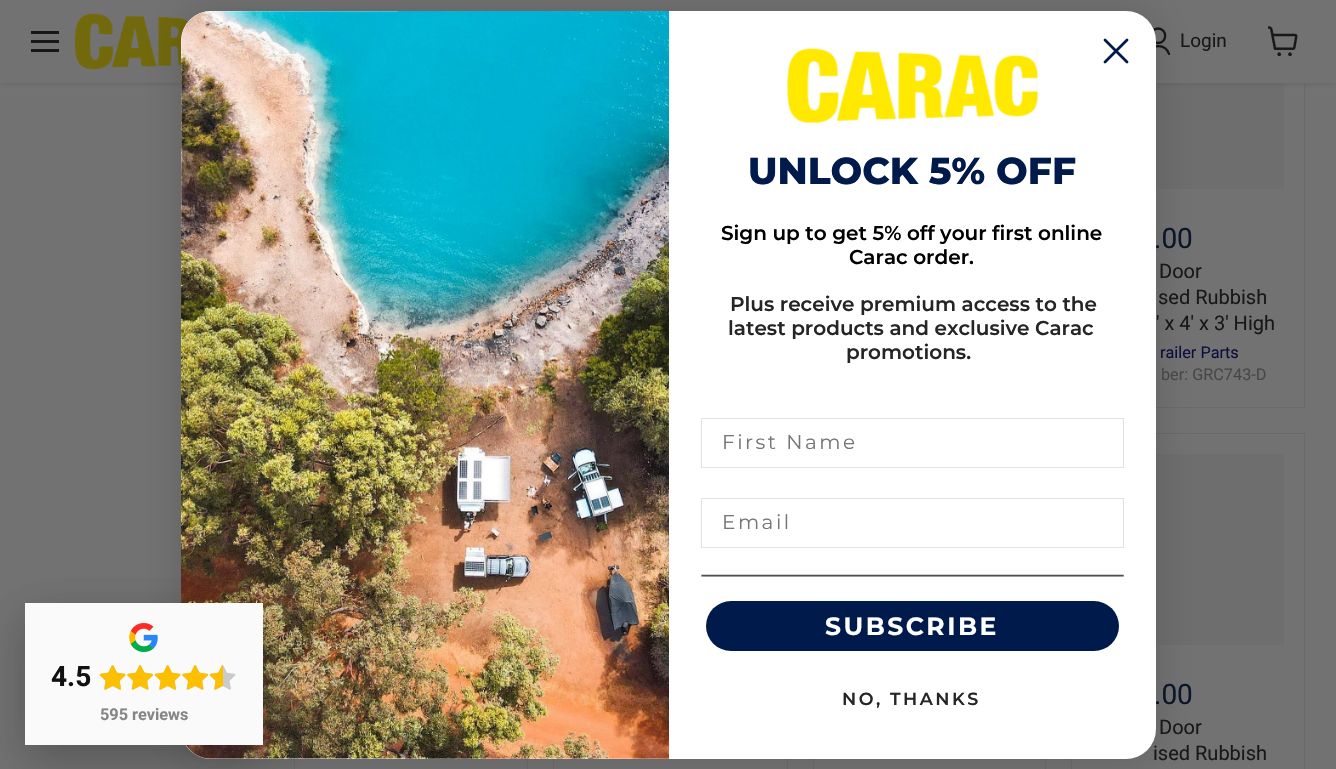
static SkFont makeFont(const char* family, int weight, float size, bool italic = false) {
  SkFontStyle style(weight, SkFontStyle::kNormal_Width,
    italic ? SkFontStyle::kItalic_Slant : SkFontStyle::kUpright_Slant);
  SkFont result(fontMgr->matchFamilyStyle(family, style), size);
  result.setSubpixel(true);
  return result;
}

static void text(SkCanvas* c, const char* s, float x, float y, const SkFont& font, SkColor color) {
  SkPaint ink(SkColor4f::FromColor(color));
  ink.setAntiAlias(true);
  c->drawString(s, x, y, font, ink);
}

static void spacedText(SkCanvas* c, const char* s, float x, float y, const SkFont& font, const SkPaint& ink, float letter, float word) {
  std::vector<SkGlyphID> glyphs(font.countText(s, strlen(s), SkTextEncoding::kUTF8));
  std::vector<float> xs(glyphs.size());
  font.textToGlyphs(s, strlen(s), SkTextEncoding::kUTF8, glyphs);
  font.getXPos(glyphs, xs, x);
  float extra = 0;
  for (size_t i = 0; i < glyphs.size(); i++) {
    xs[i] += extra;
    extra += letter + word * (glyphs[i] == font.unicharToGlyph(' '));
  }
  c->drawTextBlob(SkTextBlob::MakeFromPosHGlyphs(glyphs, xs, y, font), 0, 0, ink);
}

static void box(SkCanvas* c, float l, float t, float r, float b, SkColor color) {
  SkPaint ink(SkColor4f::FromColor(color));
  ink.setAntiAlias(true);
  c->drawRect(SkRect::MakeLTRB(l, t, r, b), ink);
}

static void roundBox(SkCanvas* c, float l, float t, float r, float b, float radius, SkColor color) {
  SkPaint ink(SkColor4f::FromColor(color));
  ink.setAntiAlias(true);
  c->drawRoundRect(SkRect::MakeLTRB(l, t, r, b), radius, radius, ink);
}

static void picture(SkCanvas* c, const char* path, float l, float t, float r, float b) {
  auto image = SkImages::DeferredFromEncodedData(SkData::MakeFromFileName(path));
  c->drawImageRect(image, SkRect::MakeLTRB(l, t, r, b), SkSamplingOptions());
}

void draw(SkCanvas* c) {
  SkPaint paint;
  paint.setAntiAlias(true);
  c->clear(0xff727272);
  paint.setStyle(SkPaint::kStroke_Style);
  paint.setStrokeWidth(1);
  paint.setColor(0xff6a6a6a);
  c->drawRect(SkRect::MakeLTRB(1071.5f, -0.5f, 1304.5f, 407.5f), paint);
  box(c, 1156, 83, 1284, 189, 0xff6e6e6e);
  paint.setStyle(SkPaint::kFill_Style);
  paint.setColor(0x403f3f3f);
  paint.setMaskFilter(SkMaskFilter::MakeBlur(kNormal_SkBlurStyle, 2.5f));
  c->drawRect(SkRect::MakeLTRB(0, 1, 1336, 84), paint);
  paint.setMaskFilter(nullptr);
  box(c, 0, 0, 1336, 83, 0xff727272);
  box(c, 31, 31, 59, 34, 0xff181818);
  box(c, 31, 40, 59, 43, 0xff181818);
  box(c, 31, 49, 59, 52, 0xff181818);
  picture(c, "img_01.png", 75, 13, 188, 70);
  paint.setStyle(SkPaint::kStroke_Style);
  paint.setStrokeWidth(2.3f);
  paint.setStrokeCap(SkPaint::kRound_Cap);
  paint.setStrokeJoin(SkPaint::kRound_Join);
  paint.setColor(0xff181818);
  c->drawPath(SkPathBuilder().moveTo(1158, 43).cubicTo(1167.5f, 43, 1167.5f, 28.5f, 1158, 28.5f).cubicTo(1148.5f, 28.5f, 1148.5f, 43, 1158, 43).close().moveTo(1169, 54).cubicTo(1165.5f, 43.5f, 1151, 43.5f, 1147, 54).detach(), paint);
  SkFont face1 = makeFont("Roboto", 400, 19);
  text(c, "Login", 1180, 47, face1, 0xff181818);
  picture(c, "img_02.png", 1268, 26, 1298, 56);
  paint.setStrokeWidth(1);
  paint.setStrokeCap(SkPaint::kButt_Cap);
  paint.setStrokeJoin(SkPaint::kMiter_Join);
  paint.setColor(0xff6a6a6a);
  c->drawRect(SkRect::MakeLTRB(294.5f, 433.5f, 527.5f, 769.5f), paint);
  c->drawRect(SkRect::MakeLTRB(553.5f, 433.5f, 787.5f, 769.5f), paint);
  c->drawRect(SkRect::MakeLTRB(813.5f, 433.5f, 1045.5f, 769.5f), paint);
  c->drawRect(SkRect::MakeLTRB(1071.5f, 433.5f, 1304.5f, 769.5f), paint);
  box(c, 1156, 454, 1284, 645, 0xff6e6e6e);
  paint.setStyle(SkPaint::kFill_Style);
  paint.setColor(0x26000000);
  paint.setMaskFilter(SkMaskFilter::MakeBlur(kNormal_SkBlurStyle, 19));
  c->drawRoundRect(SkRect::MakeLTRB(181, 11, 1156, 759), 30, 30, paint);
  paint.setMaskFilter(nullptr);
  SkFont face2 = makeFont("Roboto", 400, 28);
  text(c, ".00", 1154, 248, face2, 0xff0c162a);
  text(c, ".00", 1154, 704, face2, 0xff0c162a);
  SkFont face3 = makeFont("Roboto", 400, 20);
  text(c, "ised Rubbish", 1153, 760, face3, 0xff181818);
  roundBox(c, 181, 11, 1156, 759, 30, 0xffffffff);
  picture(c, "img_09.png", 181, 11, 669, 759);
  paint.setMaskFilter(SkMaskFilter::MakeBlur(kNormal_SkBlurStyle, 19));
  c->drawRect(SkRect::MakeLTRB(25, 615, 263, 758), paint);
  paint.setMaskFilter(nullptr);
  paint.setColor(0x1a000000);
  paint.setMaskFilter(SkMaskFilter::MakeBlur(kNormal_SkBlurStyle, 25));
  c->drawRect(SkRect::MakeLTRB(25, 621, 263, 764), paint);
  paint.setMaskFilter(nullptr);
  box(c, 25, 603, 263, 745, 0xfffafafa);
  picture(c, "img_03.png", 129, 623, 158, 653);
  SkFont face4 = makeFont("Roboto", 700, 28);
  text(c, "4.5", 51, 686, face4, 0xff111111);
  picture(c, "img_04.png", 99, 665, 126, 690);
  picture(c, "img_05.png", 99, 665, 126, 690);
  picture(c, "img_06.png", 127, 665, 153, 690);
  picture(c, "img_07.png", 127, 665, 153, 690);
  picture(c, "img_04.png", 154, 665, 181, 690);
  picture(c, "img_05.png", 154, 665, 181, 690);
  picture(c, "img_06.png", 182, 665, 208, 690);
  picture(c, "img_07.png", 182, 665, 208, 690);
  picture(c, "img_04.png", 209, 665, 236, 690);
  picture(c, "img_08.png", 209, 665, 223, 690);
  SkFont face5 = makeFont("Roboto", 700, 16.25f);
  text(c, "595 reviews", 100, 720, face5, 0xff868686);
  paint.setStyle(SkPaint::kStroke_Style);
  paint.setStrokeWidth(2.8f);
  paint.setStrokeCap(SkPaint::kRound_Cap);
  paint.setStrokeJoin(SkPaint::kRound_Join);
  paint.setColor(0xff001a4b);
  c->drawPath(SkPathBuilder().moveTo(1105, 40).lineTo(1127, 62).moveTo(1105, 62).lineTo(1127, 40).close().detach(), paint);
  picture(c, "img_10.png", 787, 48, 1039, 123);
  SkFont face6 = makeFont("Montserrat", 800, 37.5f);
  text(c, "UNLOCK 5% OFF", 748, 184, face6, 0xff001a4b);
  SkFont face7 = makeFont("Montserrat", 600, 20);
  text(c, "Sign up to get 5% off your first online", 721, 240, face7, 0xff000000);
  text(c, "Carac order.", 849, 264, face7, 0xff000000);
  text(c, "Plus receive premium access to the", 730, 311, face7, 0xff252525);
  text(c, "latest products and exclusive Carac", 728, 335, face7, 0xff252525);
  text(c, "promotions.", 846, 359, face7, 0xff252525);
  paint.setStrokeWidth(1);
  paint.setStrokeCap(SkPaint::kButt_Cap);
  paint.setStrokeJoin(SkPaint::kMiter_Join);
  paint.setColor(0xffe2e2e2);
  c->drawRect(SkRect::MakeLTRB(701.5f, 418.5f, 1123.5f, 467.5f), paint);
  SkFont face8 = makeFont("Montserrat", 400, 20);
  paint.setStyle(SkPaint::kFill_Style);
  paint.setColor(0xff767676);
  spacedText(c, "First Name", 722, 449, face8, paint, 2.5f, 0);
  paint.setStyle(SkPaint::kStroke_Style);
  paint.setColor(0xffe2e2e2);
  c->drawRect(SkRect::MakeLTRB(701.5f, 498.5f, 1123.5f, 547.5f), paint);
  paint.setStyle(SkPaint::kFill_Style);
  paint.setColor(0xff767676);
  spacedText(c, "Email", 722, 529, face8, paint, 2.5f, 0);
  picture(c, "img_11.png", 701, 574, 1124, 577);
  roundBox(c, 706, 601, 1119, 651, 25, 0xff001a4b);
  SkFont face9 = makeFont("Montserrat", 700, 25);
  paint.setColor(0xffffffff);
  spacedText(c, "SUBSCRIBE", 825, 635, face9, paint, 2.5f, 0);
  SkFont face10 = makeFont("Montserrat", 600, 17.5f);
  paint.setColor(0xff252525);
  spacedText(c, "NO, THANKS", 842, 705, face10, paint, 2.5f, 0);
  text(c, "Door", 1159, 278, face3, 0xff181818);
  text(c, "sed Rubbish", 1158, 304, face3, 0xff181818);
  text(c, "' x 4' x 3' High", 1156, 330, face3, 0xff181818);
  SkFont face11 = makeFont("Roboto", 400, 16.25f);
  text(c, "railer Parts", 1160, 358, face11, 0xff0c0c3f);
  text(c, "ber: GRC743-D", 1161, 380, face11, 0xff474747);
  text(c, "Door", 1159, 734, face3, 0xff181818);
}
